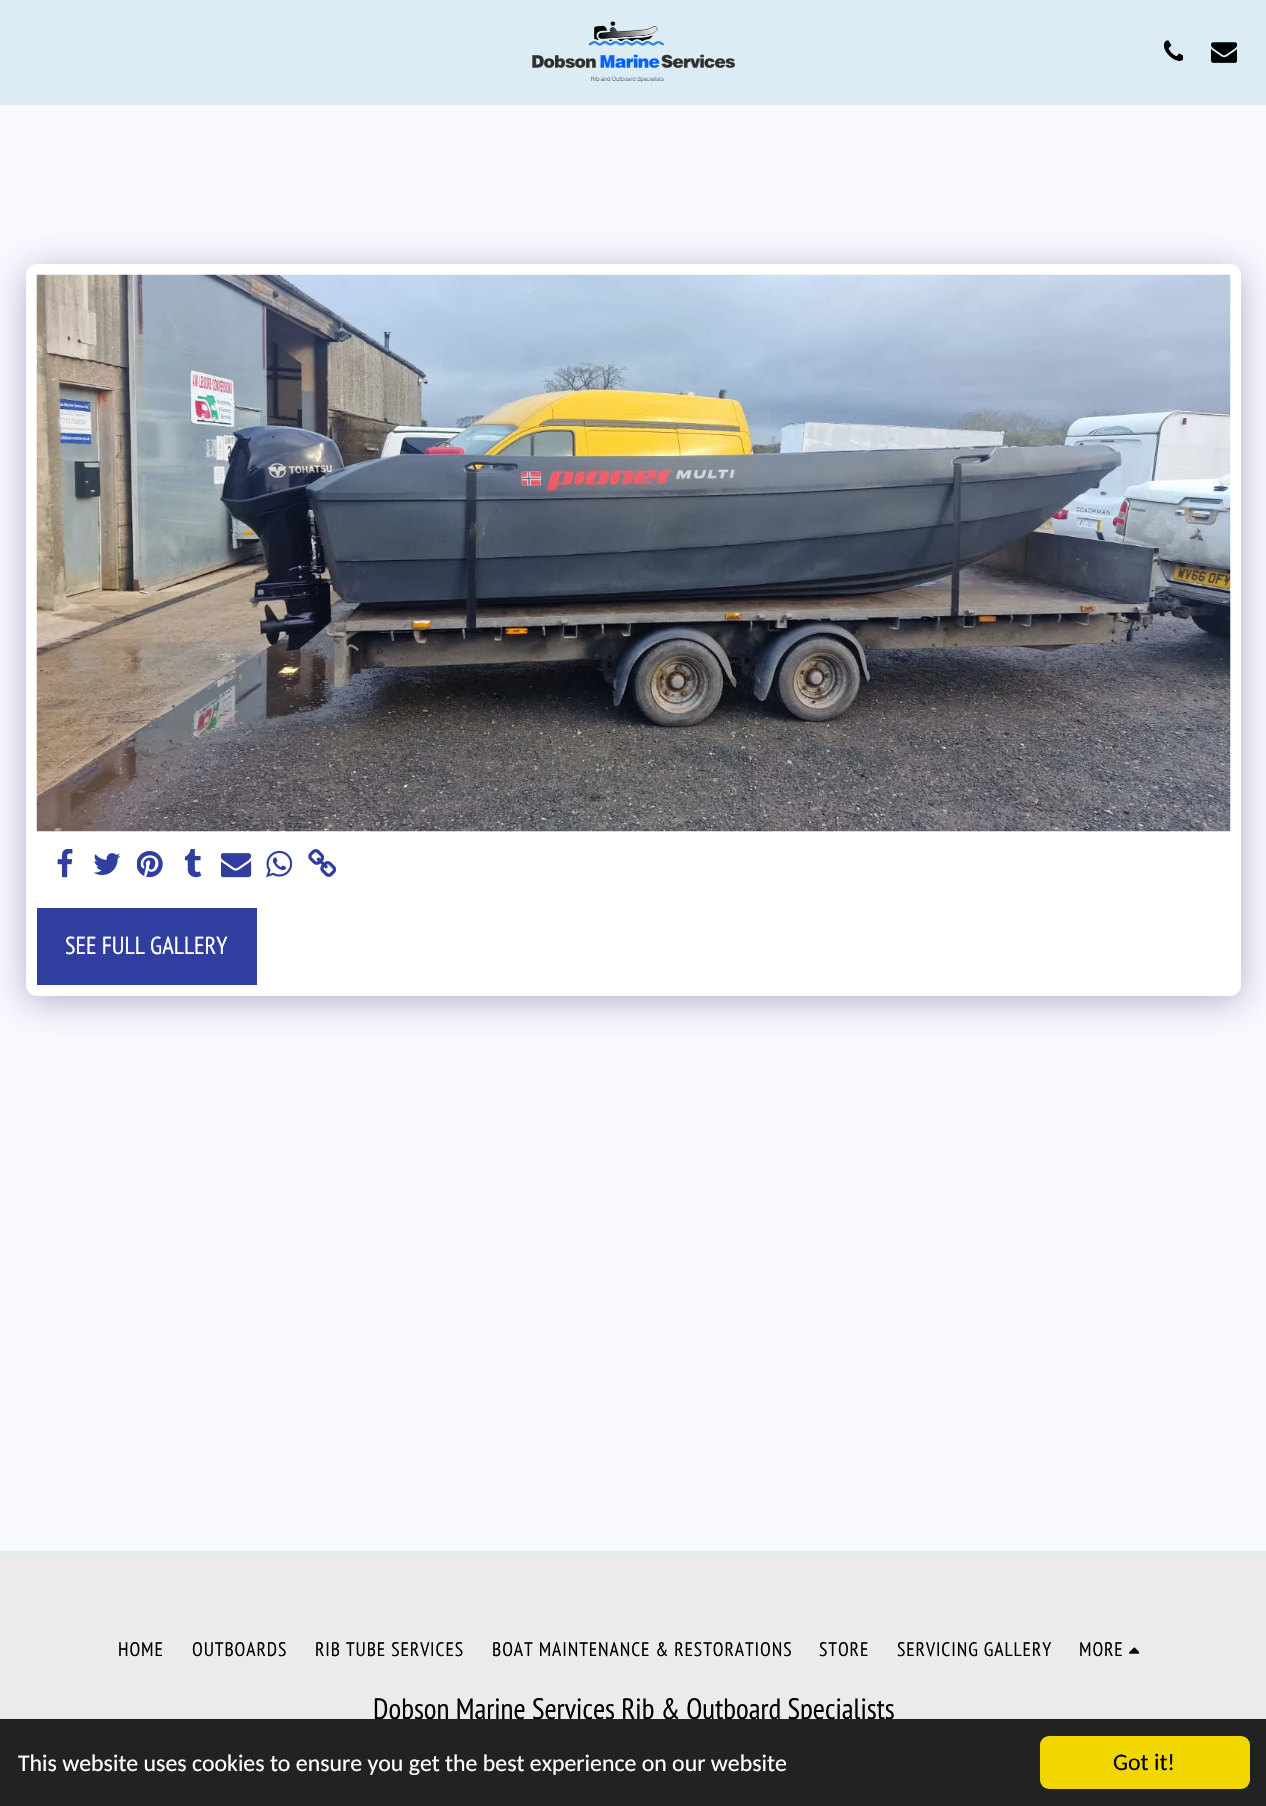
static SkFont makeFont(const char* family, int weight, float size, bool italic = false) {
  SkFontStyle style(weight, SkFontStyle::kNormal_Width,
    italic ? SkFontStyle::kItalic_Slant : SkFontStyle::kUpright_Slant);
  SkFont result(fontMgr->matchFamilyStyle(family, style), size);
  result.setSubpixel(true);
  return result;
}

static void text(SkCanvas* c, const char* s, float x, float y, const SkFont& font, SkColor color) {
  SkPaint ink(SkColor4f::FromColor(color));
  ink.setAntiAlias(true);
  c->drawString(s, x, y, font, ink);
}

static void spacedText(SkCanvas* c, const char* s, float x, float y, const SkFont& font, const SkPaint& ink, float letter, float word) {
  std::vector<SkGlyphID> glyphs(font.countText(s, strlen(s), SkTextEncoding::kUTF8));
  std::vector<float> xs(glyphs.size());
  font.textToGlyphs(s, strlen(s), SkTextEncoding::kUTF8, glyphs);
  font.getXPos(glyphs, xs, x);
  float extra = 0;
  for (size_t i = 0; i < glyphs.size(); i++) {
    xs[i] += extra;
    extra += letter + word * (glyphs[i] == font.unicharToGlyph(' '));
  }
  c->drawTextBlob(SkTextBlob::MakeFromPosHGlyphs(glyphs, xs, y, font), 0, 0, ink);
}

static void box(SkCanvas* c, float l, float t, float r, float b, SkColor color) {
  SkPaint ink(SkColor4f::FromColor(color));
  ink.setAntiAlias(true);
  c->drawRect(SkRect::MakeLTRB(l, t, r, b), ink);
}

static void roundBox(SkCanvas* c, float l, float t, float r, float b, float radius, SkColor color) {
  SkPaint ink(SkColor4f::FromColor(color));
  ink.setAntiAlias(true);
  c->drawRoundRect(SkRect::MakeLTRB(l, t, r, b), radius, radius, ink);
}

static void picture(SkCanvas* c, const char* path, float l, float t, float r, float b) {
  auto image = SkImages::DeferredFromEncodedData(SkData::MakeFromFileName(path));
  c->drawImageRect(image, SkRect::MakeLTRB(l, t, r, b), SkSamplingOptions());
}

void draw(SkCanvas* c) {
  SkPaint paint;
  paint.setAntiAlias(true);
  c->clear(0xfff8f8ff);
  box(c, 0, 0, 1266, 105, 0xffdbecf4);
  picture(c, "img_01.png", 532, 21, 735, 82);
  picture(c, "img_02.png", 1164, 40, 1183, 61);
  picture(c, "img_03.png", 1211, 42, 1237, 63);
  paint.setColor(0x664d3f7a);
  paint.setMaskFilter(SkMaskFilter::MakeBlur(kNormal_SkBlurStyle, 17.5f));
  c->drawRoundRect(SkRect::MakeLTRB(26, 270, 1241, 1001), 11, 11, paint);
  paint.setMaskFilter(nullptr);
  roundBox(c, 26, 264, 1241, 996, 11, 0xffffffff);
  picture(c, "img_04.png", 36, 274, 1231, 832);
  picture(c, "img_05.png", 57, 849, 73, 878);
  picture(c, "img_06.png", 93, 853, 121, 875);
  picture(c, "img_07.png", 137, 850, 163, 878);
  picture(c, "img_08.png", 184, 849, 202, 878);
  picture(c, "img_09.png", 221, 853, 252, 878);
  picture(c, "img_10.png", 266, 850, 292, 878);
  picture(c, "img_11.png", 308, 849, 336, 877);
  box(c, 37, 908, 257, 985, 0xff303f9f);
  SkFont face1 = makeFont("PT Sans Narrow", 400, 24.5f);
  text(c, "SEE FULL GALLERY", 65, 954, face1, 0xffffffff);
  box(c, 0, 1553, 1266, 1719, 0xffebebeb);
  box(c, 0, 1551, 1266, 1553, 0xffdbecf4);
  SkFont face2 = makeFont("PT Sans Narrow", 400, 19.6f);
  paint.setColor(0xff000000);
  spacedText(c, "HOME", 118, 1656, face2, paint, 0.9f, 0);
  spacedText(c, "OUTBOARDS", 192, 1656, face2, paint, 0.9f, 0);
  spacedText(c, "RIB TUBE SERVICES", 315, 1656, face2, paint, 0.9f, 0);
  spacedText(c, "BOAT MAINTENANCE & RESTORATIONS", 492, 1656, face2, paint, 0.9f, 0);
  spacedText(c, "STORE", 819, 1656, face2, paint, 0.9f, 0);
  spacedText(c, "SERVICING GALLERY", 897, 1656, face2, paint, 0.9f, 0);
  spacedText(c, "MORE", 1079, 1656, face2, paint, 0.9f, 0);
  picture(c, "img_12.png", 1129, 1647, 1139, 1654);
  SkFont face3 = makeFont("PT Sans Narrow", 400, 29.4f);
  text(c, "Dobson Marine Services Rib & Outboard Specialists", 373, 1719, face3, 0xff000000);
  box(c, 0, 1719, 1266, 1806, 0xff222222);
  SkFont face4 = makeFont("Carlito", 400, 23.8f);
  text(c, "This website uses cookies to ensure you get the best experience on our website", 18, 1771, face4, 0xffffffff);
  roundBox(c, 1040, 1736, 1250, 1789, 9, 0xfff1d600);
  text(c, "Got it!", 1113, 1770, face4, 0xff000000);
}
